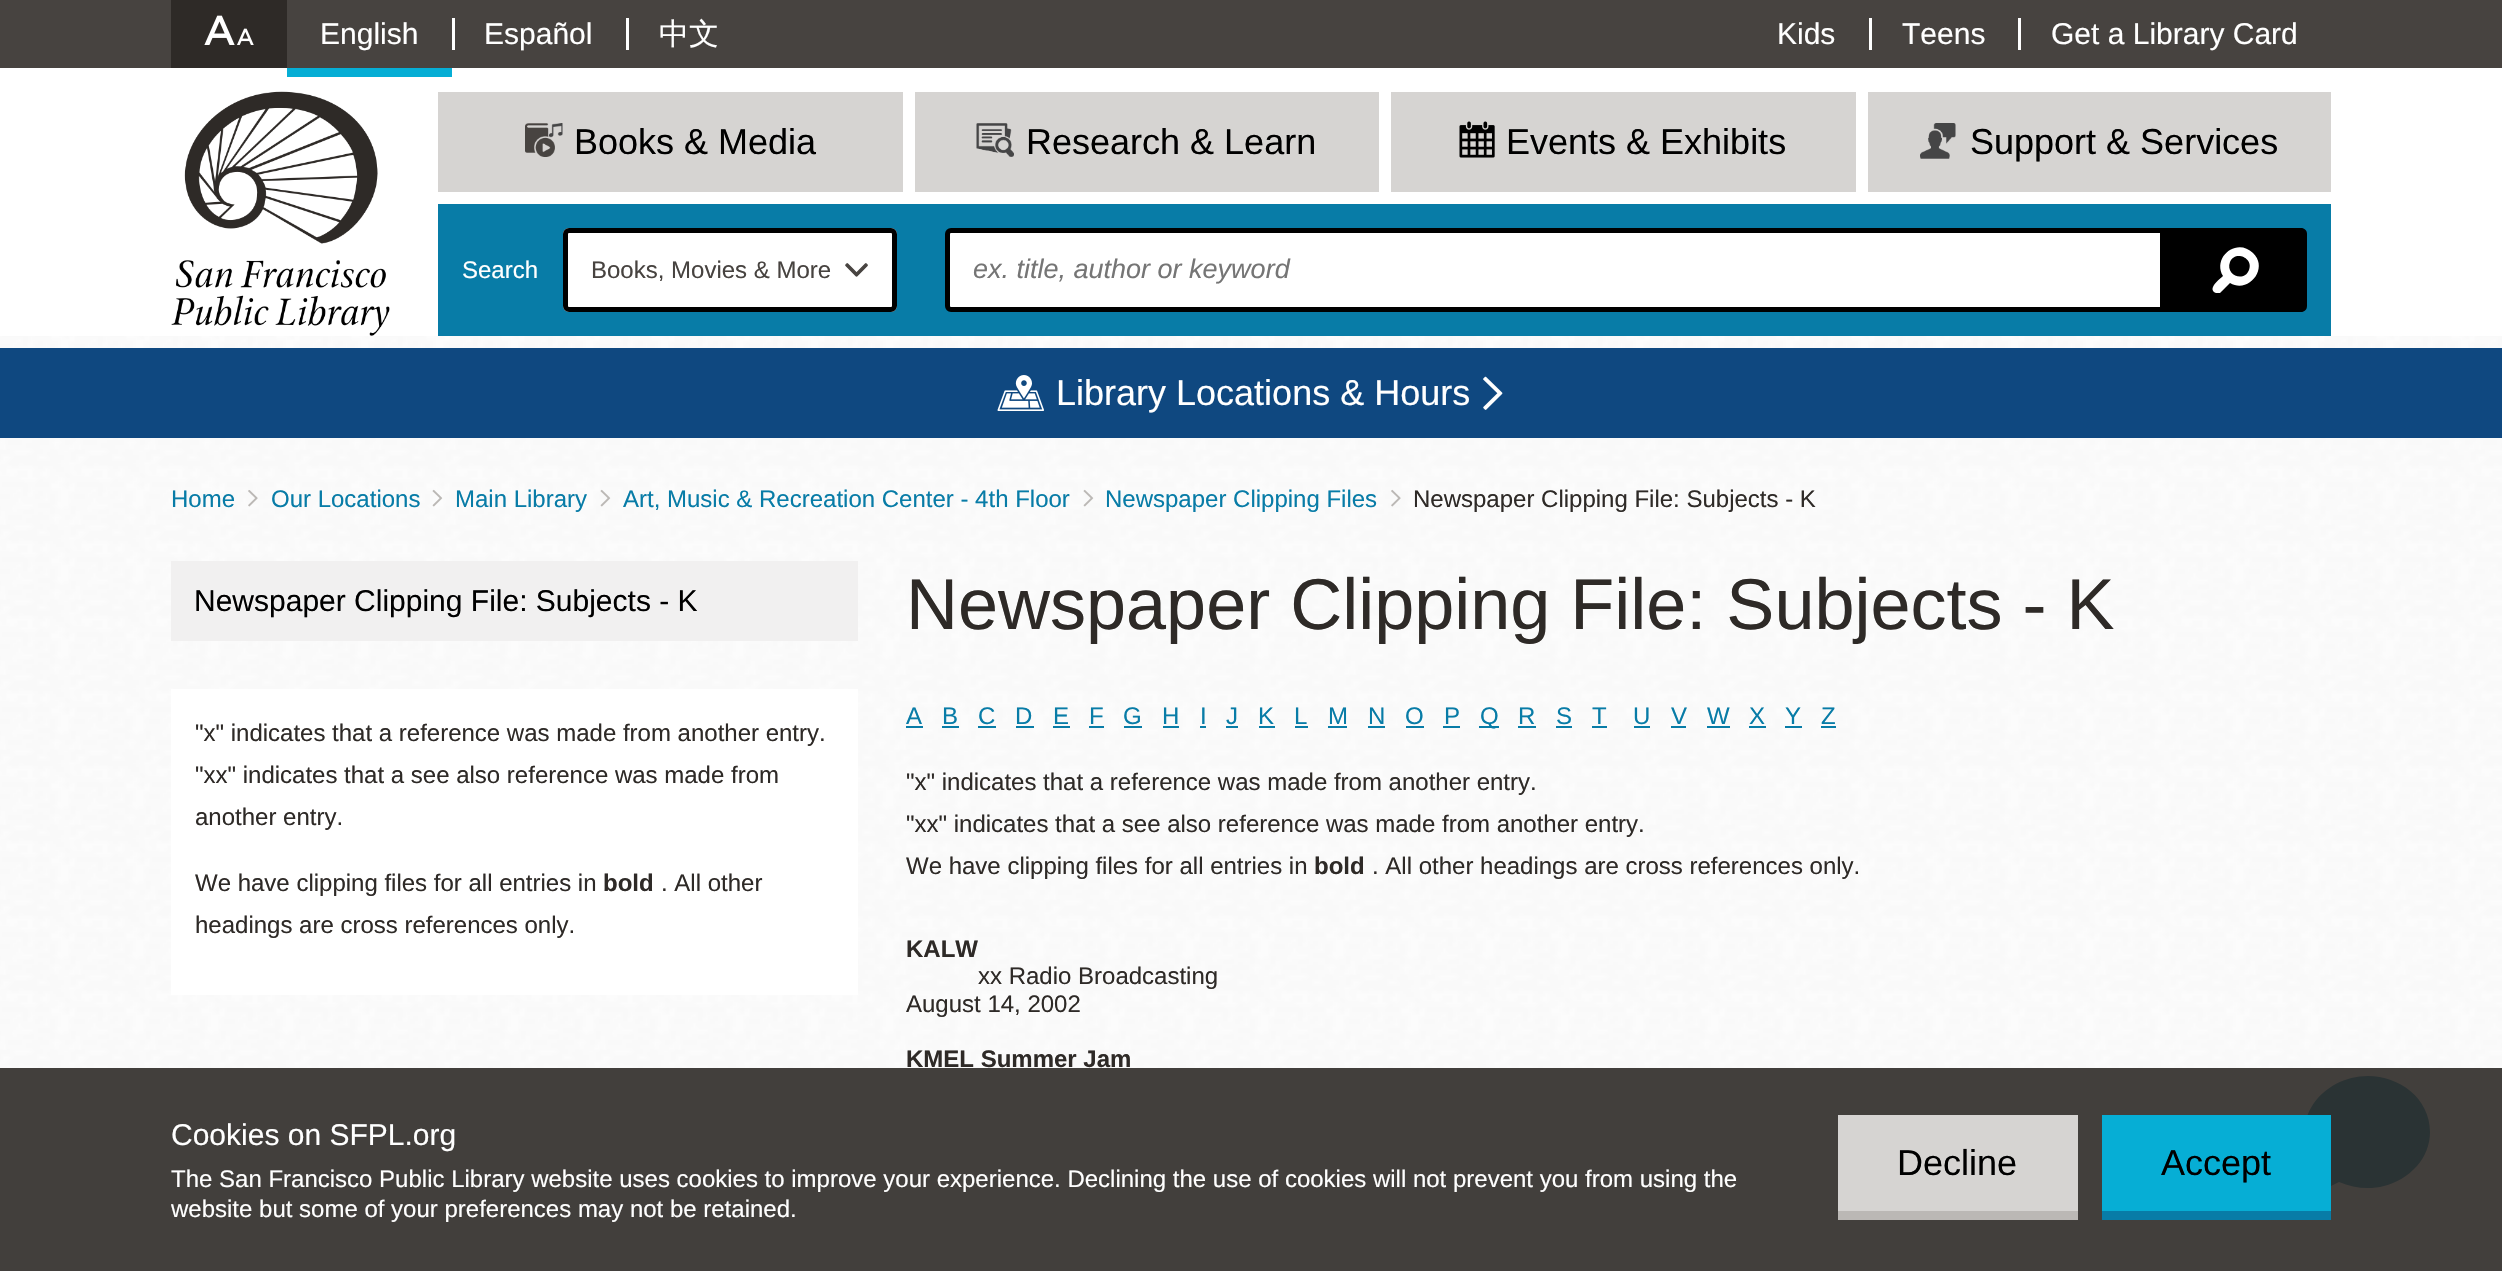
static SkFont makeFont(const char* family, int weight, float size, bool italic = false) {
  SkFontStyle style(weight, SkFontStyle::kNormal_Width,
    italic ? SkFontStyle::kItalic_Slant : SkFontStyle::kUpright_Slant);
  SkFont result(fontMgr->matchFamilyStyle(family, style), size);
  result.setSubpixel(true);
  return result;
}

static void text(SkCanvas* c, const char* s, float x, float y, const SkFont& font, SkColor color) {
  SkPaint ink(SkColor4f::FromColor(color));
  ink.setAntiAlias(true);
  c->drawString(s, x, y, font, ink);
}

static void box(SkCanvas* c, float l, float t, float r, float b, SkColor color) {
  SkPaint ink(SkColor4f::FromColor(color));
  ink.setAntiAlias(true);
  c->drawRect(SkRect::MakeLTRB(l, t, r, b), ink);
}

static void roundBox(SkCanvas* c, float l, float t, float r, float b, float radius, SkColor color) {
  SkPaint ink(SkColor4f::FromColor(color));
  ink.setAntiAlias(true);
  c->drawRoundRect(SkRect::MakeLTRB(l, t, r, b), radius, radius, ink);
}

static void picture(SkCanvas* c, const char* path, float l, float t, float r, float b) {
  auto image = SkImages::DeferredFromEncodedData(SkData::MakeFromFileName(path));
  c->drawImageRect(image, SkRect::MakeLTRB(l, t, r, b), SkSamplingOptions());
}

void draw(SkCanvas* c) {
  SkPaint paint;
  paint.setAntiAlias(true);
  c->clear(0xffffffff);
  picture(c, "img_01.png", 0, 336, 2502, 1271);
  box(c, 0, 0, 2502, 68, 0xff474340);
  box(c, 171, 0, 287, 68, 0xff2e2a27);
  picture(c, "img_02.png", 204, 15, 254, 45);
  box(c, 287, 68, 452, 77, 0xff06aed5);
  SkFont face1 = makeFont("Liberation Sans", 400, 30);
  text(c, "English", 320, 44, face1, 0xffffffff);
  box(c, 452, 18, 455, 50, 0xffffffff);
  text(c, "Español", 484, 44, face1, 0xffffffff);
  box(c, 626, 18, 629, 50, 0xffffffff);
  SkFont face2 = makeFont("WenQuanYi Zen Hei", 500, 30);
  text(c, "中文", 659, 44, face2, 0xffffffff);
  text(c, "Kids", 1777, 44, face1, 0xffffffff);
  box(c, 1869, 18, 1872, 50, 0xffffffff);
  text(c, "Teens", 1902, 44, face1, 0xffffffff);
  box(c, 2018, 18, 2021, 50, 0xffffffff);
  text(c, "Get a Library Card", 2051, 44, face1, 0xffffffff);
  picture(c, "img_03.png", 171, 91, 390, 336);
  box(c, 438, 92, 903, 192, 0xffd6d4d2);
  picture(c, "img_04.png", 525, 123, 563, 157);
  SkFont face3 = makeFont("Liberation Sans", 400, 36);
  text(c, "Books & Media", 574, 154, face3, 0xff000000);
  box(c, 915, 92, 1379, 192, 0xffd6d4d2);
  picture(c, "img_05.png", 976, 123, 1014, 157);
  text(c, "Research & Learn", 1026, 154, face3, 0xff000000);
  box(c, 1391, 92, 1856, 192, 0xffd6d4d2);
  picture(c, "img_06.png", 1459, 121, 1495, 158);
  text(c, "Events & Exhibits", 1506, 154, face3, 0xff000000);
  box(c, 1868, 92, 2331, 192, 0xffd6d4d2);
  picture(c, "img_07.png", 1920, 123, 1956, 159);
  text(c, "Support & Services", 1970, 154, face3, 0xff000000);
  box(c, 438, 204, 2331, 336, 0xff087ca7);
  SkFont face4 = makeFont("Liberation Sans", 400, 24);
  text(c, "Search", 462, 278, face4, 0xffffffff);
  roundBox(c, 563, 228, 897, 312, 6, 0xffffffff);
  picture(c, "img_08.png", 845, 263, 868, 277);
  paint.setStyle(SkPaint::kStroke_Style);
  paint.setStrokeWidth(5);
  paint.setColor(0xff000000);
  c->drawRoundRect(SkRect::MakeLTRB(565.5f, 230.5f, 894.5f, 309.5f), 3.5f, 3.5f, paint);
  text(c, "Books, Movies & More", 591, 278, face4, 0xff474340);
  paint.setStyle(SkPaint::kFill_Style);
  paint.setColor(0xffffffff);
  c->drawPath(SkPathBuilder().moveTo(951, 230.5f).lineTo(2162.5f, 230.5f).lineTo(2162.5f, 309.5f).lineTo(951, 309.5f).cubicTo(949, 309.5f, 947.5f, 308, 947.5f, 306).lineTo(947.5f, 234).cubicTo(947.5f, 232, 949, 230.5f, 951, 230.5f).close().detach(), paint);
  paint.setStyle(SkPaint::kStroke_Style);
  paint.setColor(0xff000000);
  c->drawPath(SkPathBuilder().moveTo(951, 230.5f).lineTo(2162.5f, 230.5f).lineTo(2162.5f, 309.5f).lineTo(951, 309.5f).cubicTo(949, 309.5f, 947.5f, 308, 947.5f, 306).lineTo(947.5f, 234).cubicTo(947.5f, 232, 949, 230.5f, 951, 230.5f).close().detach(), paint);
  SkFont face5 = makeFont("Liberation Sans", 400, 27, true);
  text(c, "ex. title, author or keyword", 973, 278, face5, 0xff757575);
  paint.setStyle(SkPaint::kFill_Style);
  c->drawPath(SkPathBuilder().moveTo(2165, 228).lineTo(2301, 228).cubicTo(2304.5f, 228, 2307, 230.5f, 2307, 234).lineTo(2307, 306).cubicTo(2307, 309.5f, 2304.5f, 312, 2301, 312).lineTo(2165, 312).close().detach(), paint);
  paint.setColor(0xffffffff);
  c->drawPath(SkPathBuilder().moveTo(2253, 253).cubicTo(2269, 268, 2249, 294, 2230, 283).lineTo(2220, 293).cubicTo(2219, 293, 2217, 293, 2216, 293).cubicTo(2206, 289, 2221, 278, 2223, 276).cubicTo(2212, 257, 2237, 237, 2253, 253).close().moveTo(2230, 262).cubicTo(2225, 275, 2244, 283, 2249, 270).cubicTo(2254, 258, 2235, 250, 2230, 262).close().detach(), paint);
  box(c, 0, 348, 2502, 438, 0xff0f4880);
  picture(c, "img_09.png", 997, 375, 1044, 411);
  text(c, "Library Locations & Hours", 1056, 405, face3, 0xffffffff);
  picture(c, "img_10.png", 1483, 376, 1503, 410);
  text(c, "Home", 171, 507, face4, 0xff087ca7);
  picture(c, "img_11.png", 248, 490, 258, 507);
  text(c, "Our Locations", 271, 507, face4, 0xff087ca7);
  picture(c, "img_12.png", 432, 489, 443, 507);
  text(c, "Main Library", 455, 507, face4, 0xff087ca7);
  picture(c, "img_13.png", 600, 489, 611, 507);
  text(c, "Art, Music & Recreation Center - 4th Floor", 623, 507, face4, 0xff087ca7);
  picture(c, "img_14.png", 1083, 489, 1094, 507);
  text(c, "Newspaper Clipping Files", 1105, 507, face4, 0xff087ca7);
  picture(c, "img_15.png", 1391, 489, 1401, 507);
  text(c, "Newspaper Clipping File: Subjects - K", 1413, 507, face4, 0xff2e2a27);
  paint.setColor(0xff087ca7);
  c->drawPath(SkPathBuilder().moveTo(2368, 1076).cubicTo(2322, 1076, 2286, 1122, 2315, 1162).lineTo(2313, 1181).cubicTo(2312, 1191, 2309, 1196, 2319, 1192).lineTo(2339, 1182).cubicTo(2353, 1188, 2369, 1190, 2384, 1186).cubicTo(2396, 1183, 2408, 1176, 2417, 1166).cubicTo(2425, 1157, 2430, 1145, 2430, 1132).cubicTo(2430, 1098, 2399, 1076, 2368, 1076).close().detach(), paint);
  box(c, 171, 561, 858, 641, 0xfff1f0f0);
  text(c, "Newspaper Clipping File: Subjects - K", 194, 611, face1, 0xff000000);
  box(c, 171, 689, 858, 995, 0xffffffff);
  text(c, "\"x\" indicates that a reference was made from another entry.", 195, 741, face4, 0xff2e2a27);
  text(c, "\"xx\" indicates that a see also reference was made from", 195, 783, face4, 0xff2e2a27);
  text(c, "another entry.", 195, 825, face4, 0xff2e2a27);
  text(c, "We have clipping files for all entries in", 195, 891, face4, 0xff2e2a27);
  SkFont face6 = makeFont("Liberation Sans", 700, 24);
  text(c, "bold", 603, 891, face6, 0xff2e2a27);
  text(c, ". All other", 661, 891, face4, 0xff2e2a27);
  text(c, "headings are cross references only.", 195, 933, face4, 0xff2e2a27);
  SkFont face7 = makeFont("Liberation Sans", 400, 72);
  text(c, "Newspaper Clipping File: Subjects - K", 906, 629, face7, 0xff2e2a27);
  text(c, "A", 906, 724, face4, 0xff087ca7);
  box(c, 906, 726, 923, 728, 0xff087ca7);
  text(c, "B", 942, 724, face4, 0xff087ca7);
  box(c, 942, 726, 959, 728, 0xff087ca7);
  text(c, "C", 978, 724, face4, 0xff087ca7);
  box(c, 978, 726, 996, 728, 0xff087ca7);
  text(c, "D", 1015, 724, face4, 0xff087ca7);
  box(c, 1016, 726, 1034, 728, 0xff087ca7);
  text(c, "E", 1053, 724, face4, 0xff087ca7);
  box(c, 1053, 726, 1070, 728, 0xff087ca7);
  text(c, "F", 1089, 724, face4, 0xff087ca7);
  box(c, 1089, 726, 1104, 728, 0xff087ca7);
  text(c, "G", 1123, 724, face4, 0xff087ca7);
  box(c, 1124, 726, 1142, 728, 0xff087ca7);
  text(c, "H", 1162, 724, face4, 0xff087ca7);
  box(c, 1163, 726, 1179, 728, 0xff087ca7);
  text(c, "I", 1200, 724, face4, 0xff087ca7);
  box(c, 1200, 726, 1206, 728, 0xff087ca7);
  text(c, "J", 1226, 724, face4, 0xff087ca7);
  box(c, 1226, 726, 1238, 728, 0xff087ca7);
  text(c, "K", 1258, 724, face4, 0xff087ca7);
  box(c, 1259, 726, 1275, 728, 0xff087ca7);
  text(c, "L", 1294, 724, face4, 0xff087ca7);
  box(c, 1295, 726, 1308, 728, 0xff087ca7);
  text(c, "M", 1328, 724, face4, 0xff087ca7);
  box(c, 1328, 726, 1347, 728, 0xff087ca7);
  text(c, "N", 1368, 724, face4, 0xff087ca7);
  box(c, 1368, 726, 1385, 728, 0xff087ca7);
  text(c, "O", 1405, 724, face4, 0xff087ca7);
  box(c, 1406, 726, 1424, 728, 0xff087ca7);
  text(c, "P", 1444, 724, face4, 0xff087ca7);
  box(c, 1443, 726, 1460, 728, 0xff087ca7);
  box(c, 1479, 726, 1499, 728, 0xff087ca7);
  text(c, "Q", 1480, 724, face4, 0xff087ca7);
  text(c, "R", 1518, 724, face4, 0xff087ca7);
  box(c, 1518, 726, 1536, 728, 0xff087ca7);
  text(c, "S", 1556, 724, face4, 0xff087ca7);
  box(c, 1556, 726, 1572, 728, 0xff087ca7);
  text(c, "T", 1592, 724, face4, 0xff087ca7);
  box(c, 1592, 726, 1607, 728, 0xff087ca7);
  text(c, "U", 1633, 724, face4, 0xff087ca7);
  box(c, 1634, 726, 1650, 728, 0xff087ca7);
  text(c, "V", 1671, 724, face4, 0xff087ca7);
  box(c, 1671, 726, 1686, 728, 0xff087ca7);
  text(c, "W", 1707, 724, face4, 0xff087ca7);
  box(c, 1707, 726, 1730, 728, 0xff087ca7);
  text(c, "X", 1749, 724, face4, 0xff087ca7);
  box(c, 1749, 726, 1766, 728, 0xff087ca7);
  text(c, "Y", 1785, 724, face4, 0xff087ca7);
  box(c, 1785, 726, 1802, 728, 0xff087ca7);
  text(c, "Z", 1821, 724, face4, 0xff087ca7);
  box(c, 1821, 726, 1836, 728, 0xff087ca7);
  text(c, "\"x\" indicates that a reference was made from another entry.", 906, 790, face4, 0xff2e2a27);
  text(c, "\"xx\" indicates that a see also reference was made from another entry.", 906, 832, face4, 0xff2e2a27);
  text(c, "We have clipping files for all entries in", 906, 874, face4, 0xff2e2a27);
  text(c, "bold", 1314, 874, face6, 0xff2e2a27);
  text(c, ". All other headings are cross references only.", 1372, 874, face4, 0xff2e2a27);
  text(c, "KALW", 906, 957, face6, 0xff2e2a27);
  text(c, "xx Radio Broadcasting", 978, 984, face4, 0xff2e2a27);
  text(c, "August 14, 2002", 906, 1012, face4, 0xff2e2a27);
  text(c, "KMEL Summer Jam", 906, 1067, face6, 0xff2e2a27);
  box(c, 0, 1068, 2502, 1271, 0xe62e2a27);
  text(c, "Cookies on SFPL.org", 171, 1145, face1, 0xffffffff);
  text(c, "The San Francisco Public Library website uses cookies to improve your experience. Declining the use of cookies will not prevent you from using the", 171, 1187, face4, 0xffffffff);
  text(c, "website but some of your preferences may not be retained.", 171, 1217, face4, 0xffffffff);
  paint.setColor(0xffbbb8b5);
  c->drawPath(SkPathBuilder().moveTo(1838, 1210).lineTo(1838, 1220).lineTo(2078, 1220).lineTo(2078, 1124).lineTo(2078, 1210).close().detach(), paint);
  box(c, 1838, 1115, 2078, 1211, 0xffd6d4d2);
  text(c, "Decline", 1897, 1175, face3, 0xff000000);
  box(c, 2102, 1211, 2331, 1220, 0xff087ca7);
  box(c, 2102, 1115, 2331, 1211, 0xff06aed5);
  text(c, "Accept", 2161, 1175, face3, 0xff000000);
}
